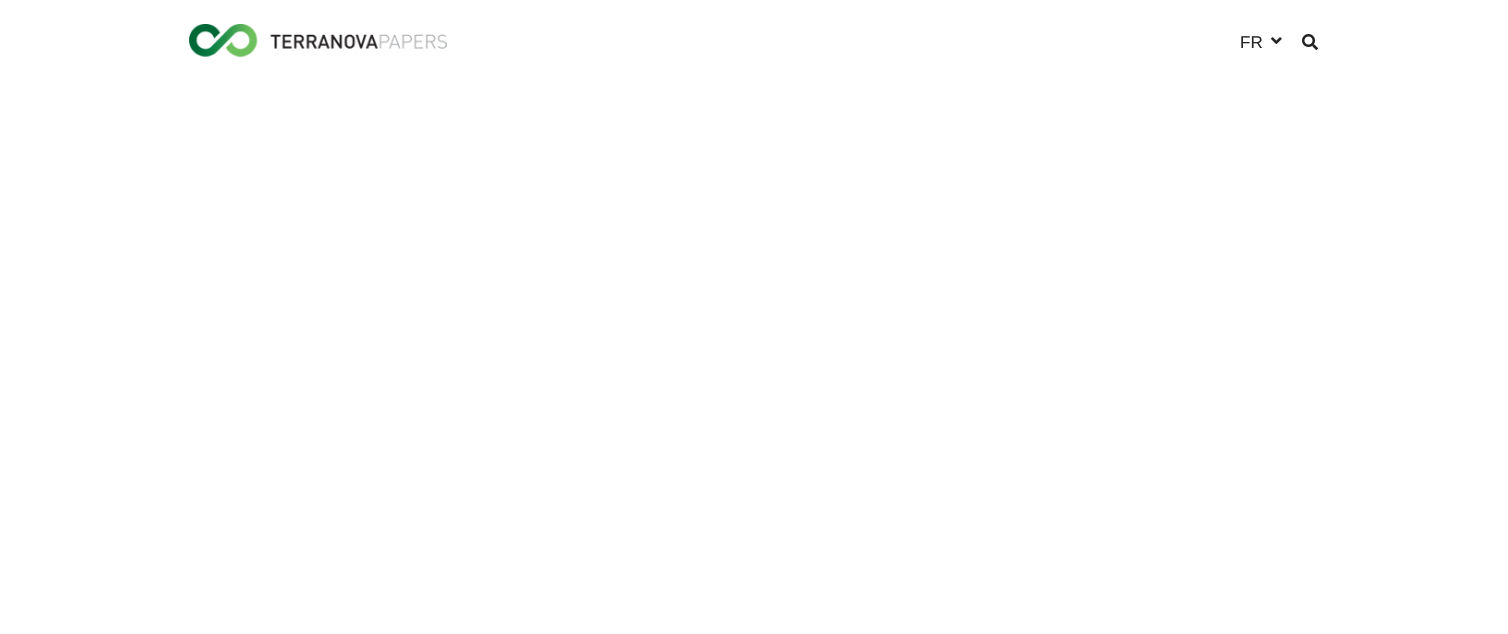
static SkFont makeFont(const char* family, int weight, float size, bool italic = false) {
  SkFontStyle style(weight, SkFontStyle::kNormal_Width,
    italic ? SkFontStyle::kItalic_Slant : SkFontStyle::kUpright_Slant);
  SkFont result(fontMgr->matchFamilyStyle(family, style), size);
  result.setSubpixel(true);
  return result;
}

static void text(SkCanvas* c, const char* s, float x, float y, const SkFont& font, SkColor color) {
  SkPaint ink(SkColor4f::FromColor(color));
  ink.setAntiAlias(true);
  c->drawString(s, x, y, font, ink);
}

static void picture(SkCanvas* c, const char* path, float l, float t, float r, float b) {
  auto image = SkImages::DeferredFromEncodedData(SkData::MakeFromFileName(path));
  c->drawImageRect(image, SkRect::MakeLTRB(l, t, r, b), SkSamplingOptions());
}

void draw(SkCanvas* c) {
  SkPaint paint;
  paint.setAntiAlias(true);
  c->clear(0xffffffff);
  picture(c, "img_01.png", 189, 24, 447, 57);
  SkFont face1 = makeFont("Liberation Sans", 400, 17);
  text(c, "FR", 1240, 48, face1, 0xff252525);
  picture(c, "img_02.png", 1271, 37, 1282, 44);
  picture(c, "img_03.png", 1302, 34, 1318, 50);
}
